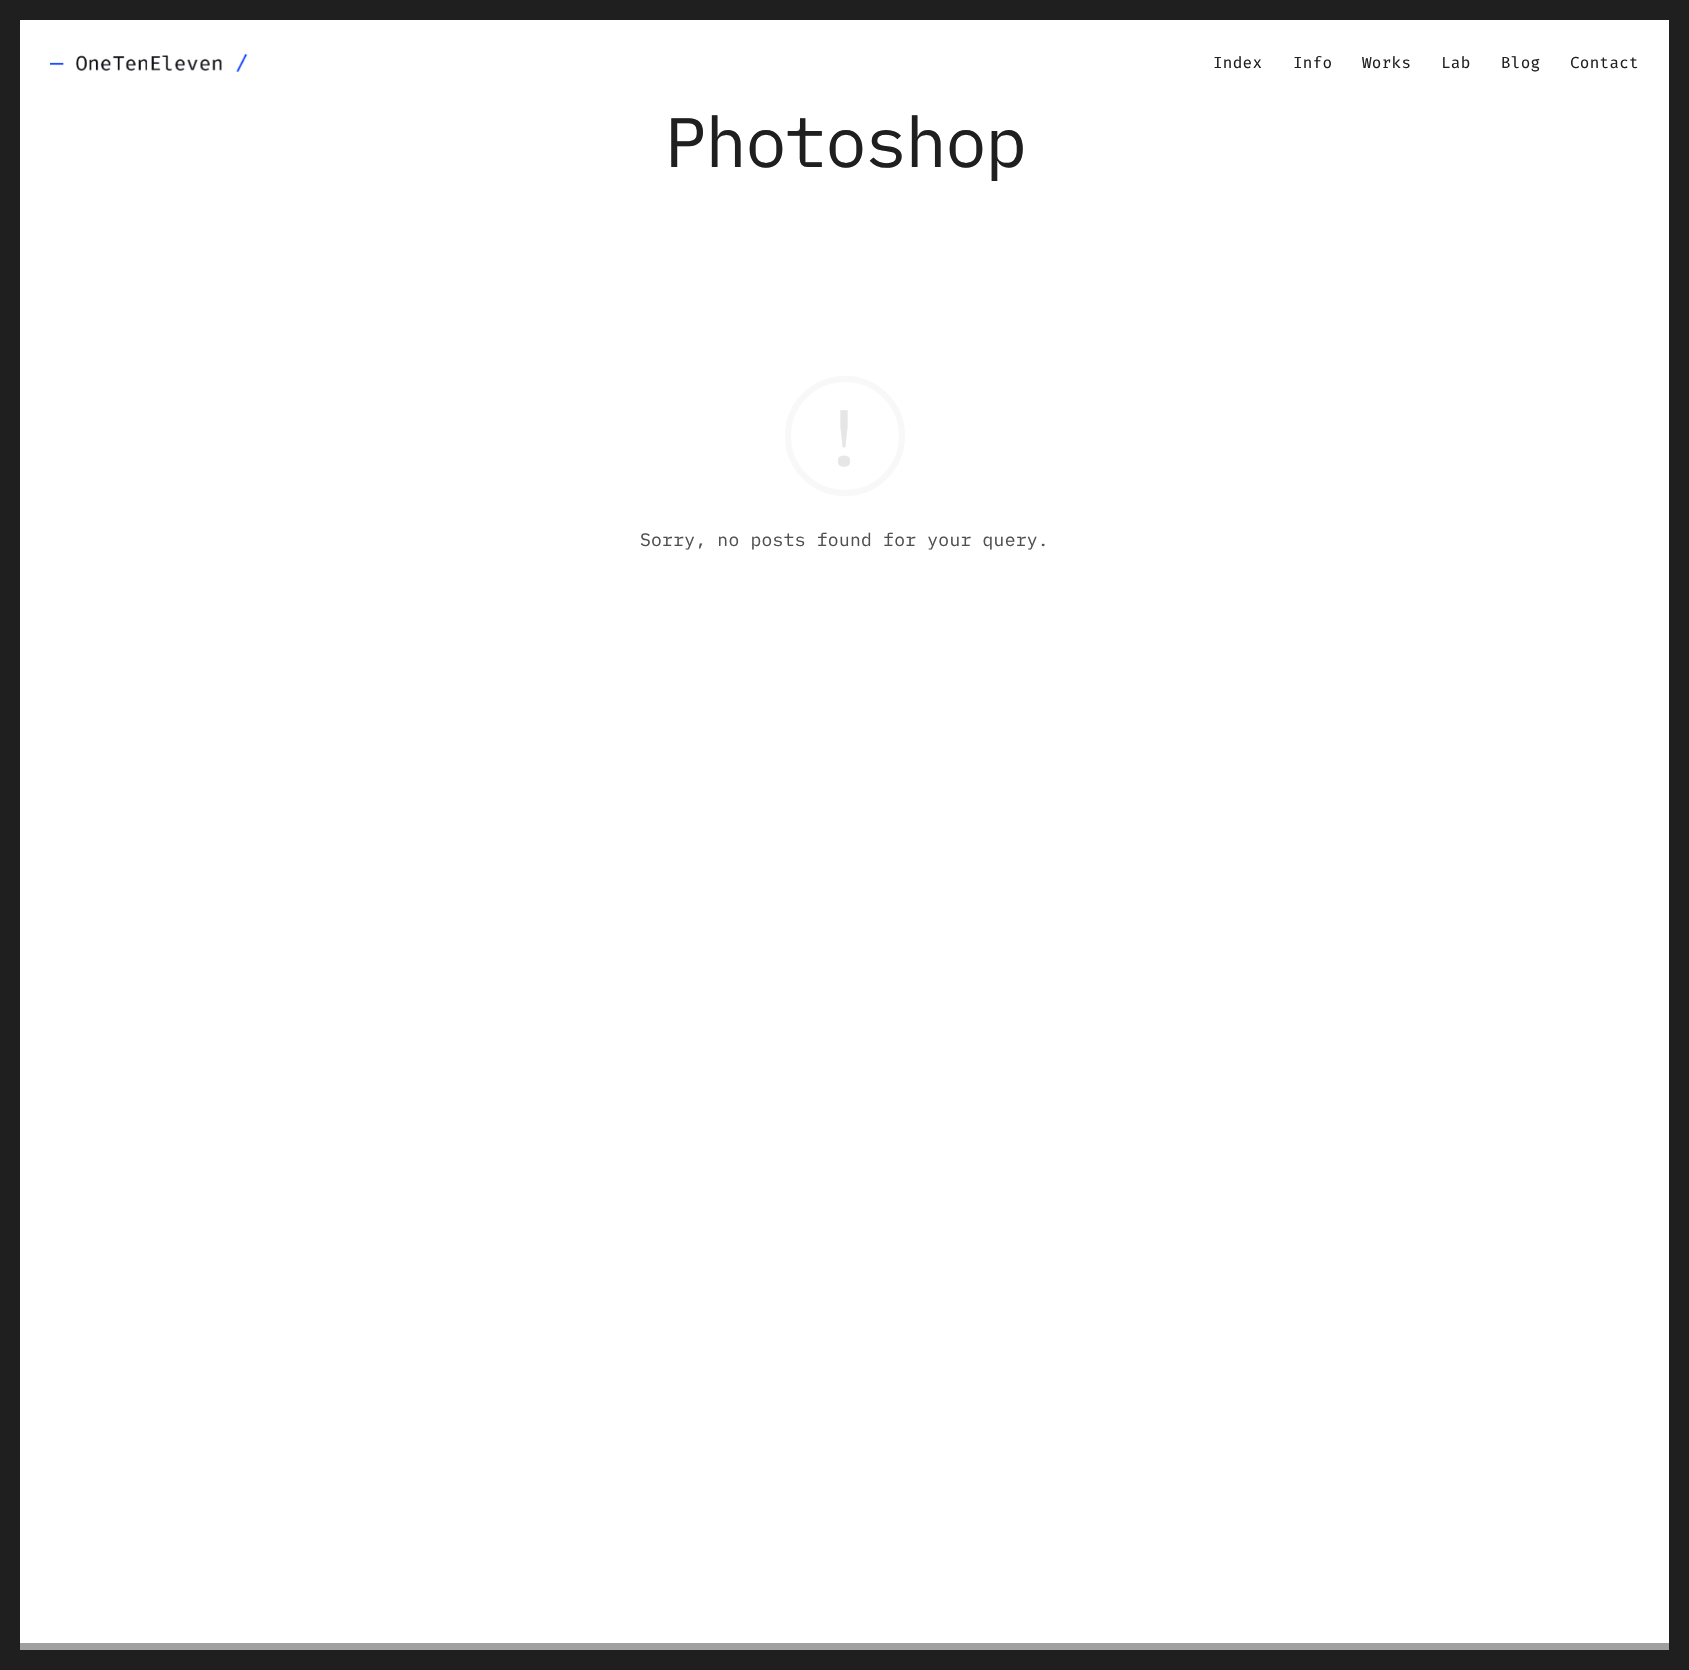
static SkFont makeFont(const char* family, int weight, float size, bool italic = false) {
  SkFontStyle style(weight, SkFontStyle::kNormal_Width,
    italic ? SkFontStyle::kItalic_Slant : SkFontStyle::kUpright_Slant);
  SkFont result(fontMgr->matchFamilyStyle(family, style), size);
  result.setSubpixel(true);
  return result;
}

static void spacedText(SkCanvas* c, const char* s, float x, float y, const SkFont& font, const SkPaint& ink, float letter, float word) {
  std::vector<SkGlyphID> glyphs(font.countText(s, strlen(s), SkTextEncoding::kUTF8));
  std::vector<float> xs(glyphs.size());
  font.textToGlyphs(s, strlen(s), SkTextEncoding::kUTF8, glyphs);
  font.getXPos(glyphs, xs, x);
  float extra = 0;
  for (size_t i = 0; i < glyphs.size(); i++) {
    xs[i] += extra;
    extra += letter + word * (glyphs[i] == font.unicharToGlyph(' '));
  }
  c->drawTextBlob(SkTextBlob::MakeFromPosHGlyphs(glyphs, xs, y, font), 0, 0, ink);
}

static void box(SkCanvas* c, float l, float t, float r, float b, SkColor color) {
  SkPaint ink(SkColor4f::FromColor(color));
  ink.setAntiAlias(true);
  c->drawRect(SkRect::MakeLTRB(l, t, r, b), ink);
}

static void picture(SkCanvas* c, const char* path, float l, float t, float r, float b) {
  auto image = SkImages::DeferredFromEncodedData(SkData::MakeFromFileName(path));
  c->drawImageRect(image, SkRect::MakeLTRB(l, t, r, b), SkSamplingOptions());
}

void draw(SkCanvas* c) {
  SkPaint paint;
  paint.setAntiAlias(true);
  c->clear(0xffffffff);
  picture(c, "img_01.png", 50, 54, 248, 72);
  paint.setStyle(SkPaint::kStroke_Style);
  paint.setStrokeWidth(6);
  paint.setColor(0xfff8f8f8);
  c->drawCircle(845, 436, 57, paint);
  box(c, 20, 1643, 1669, 1650, 0xffa0a0a0);
  paint.setStrokeWidth(20);
  paint.setColor(0xff1f1f1f);
  c->drawRect(SkRect::MakeLTRB(10, 10, 1679, 1660), paint);
  SkFont face1 = makeFont("Fira Mono", 400, 16);
  paint.setStyle(SkPaint::kFill_Style);
  spacedText(c, "Index", 1213, 68, face1, paint, 0.25f, 0);
  spacedText(c, "Info", 1293, 68, face1, paint, 0.25f, 0);
  spacedText(c, "Works", 1362, 68, face1, paint, 0.25f, 0);
  spacedText(c, "Lab", 1441, 68, face1, paint, 0.25f, 0);
  spacedText(c, "Blog", 1501, 68, face1, paint, 0.25f, 0);
  spacedText(c, "Contact", 1570, 68, face1, paint, 0.25f, 0);
  SkFont face2 = makeFont("IBM Plex Mono", 400, 70);
  spacedText(c, "Photoshop", 665, 167, face2, paint, -2, 0);
  SkFont face3 = makeFont("IBM Plex Mono", 400, 80);
  paint.setColor(0xffe6e6e6);
  spacedText(c, "!", 820, 466, face3, paint, 0.25f, 0);
  SkFont face4 = makeFont("IBM Plex Mono", 400, 18);
  paint.setColor(0xff505050);
  spacedText(c, "Sorry, no posts found for your query.", 640, 546, face4, paint, 0.25f, 0);
}
